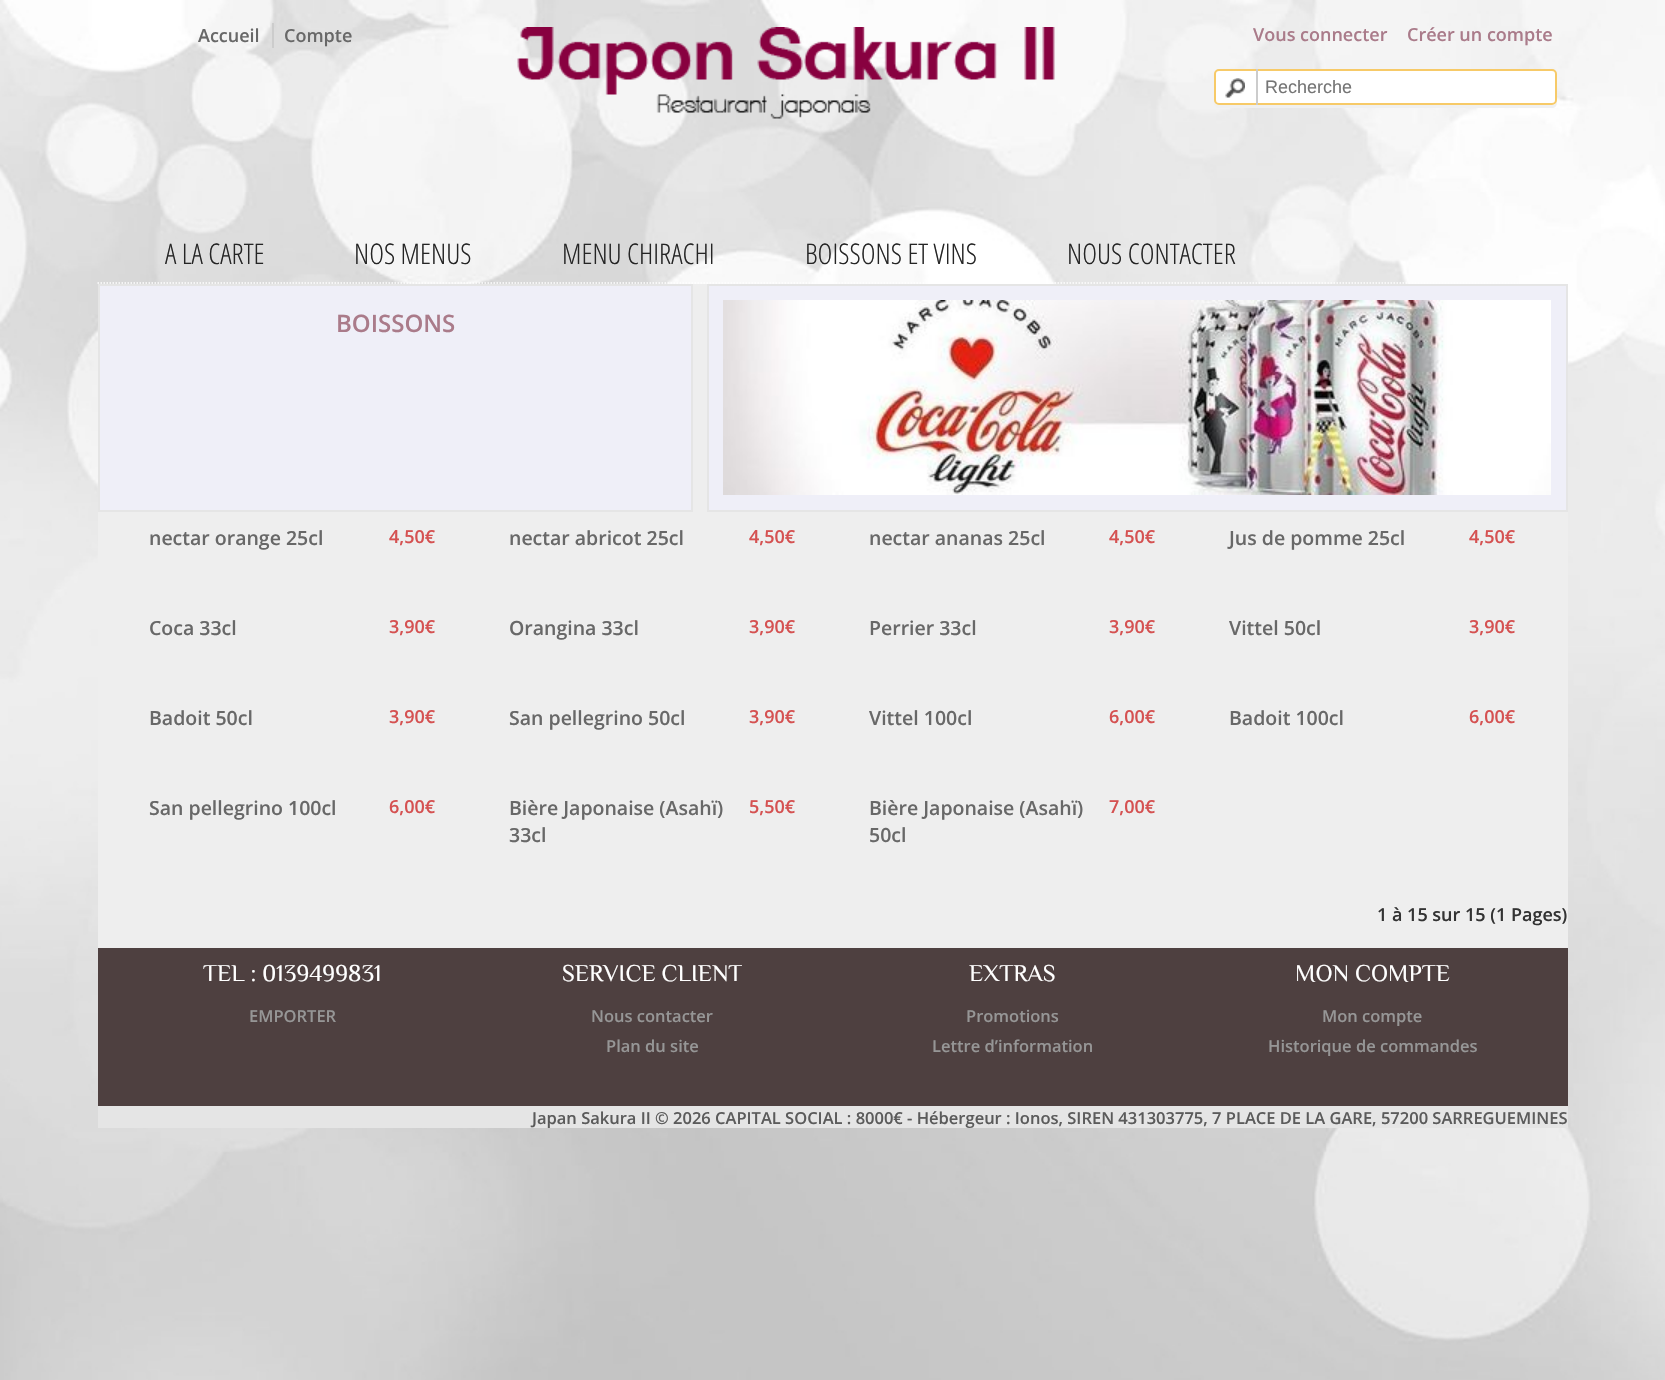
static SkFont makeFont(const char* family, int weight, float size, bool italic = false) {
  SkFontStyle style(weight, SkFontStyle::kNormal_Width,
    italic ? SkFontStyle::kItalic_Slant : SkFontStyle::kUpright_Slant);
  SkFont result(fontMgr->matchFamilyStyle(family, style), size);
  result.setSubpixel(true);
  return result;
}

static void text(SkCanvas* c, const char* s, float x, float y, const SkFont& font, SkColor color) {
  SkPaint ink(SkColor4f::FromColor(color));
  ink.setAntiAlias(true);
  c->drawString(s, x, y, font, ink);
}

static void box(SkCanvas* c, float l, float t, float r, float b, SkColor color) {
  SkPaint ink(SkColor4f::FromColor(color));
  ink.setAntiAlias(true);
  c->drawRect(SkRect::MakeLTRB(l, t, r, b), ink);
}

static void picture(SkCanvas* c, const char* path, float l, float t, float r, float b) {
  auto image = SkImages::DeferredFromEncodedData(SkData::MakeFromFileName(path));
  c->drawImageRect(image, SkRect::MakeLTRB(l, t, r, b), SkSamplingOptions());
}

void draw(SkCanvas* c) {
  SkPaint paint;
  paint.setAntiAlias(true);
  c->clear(0xffffffff);
  picture(c, "img_01.png", 0, 0, 1665, 1380);
  SkFont face1 = makeFont("Open Sans", 600, 18);
  text(c, "Accueil", 198, 42, face1, 0xff686868);
  box(c, 272, 23, 274, 48, 0xffcccccc);
  text(c, "Compte", 284, 42, face1, 0xff686868);
  picture(c, "img_02.png", 517, 27, 1055, 119);
  text(c, "Vous connecter", 1253, 41, face1, 0xffaa7b8a);
  text(c, "Créer un compte", 1407, 41, face1, 0xffaa7b8a);
  paint.setColor(0xfff0f0f0);
  c->drawPath(SkPathBuilder().moveTo(1214, 103).cubicTo(1214, 105, 1216, 108, 1219, 108).lineTo(1553, 108).cubicTo(1557, 107, 1557, 104, 1557, 100).cubicTo(1557, 103, 1555, 105, 1552, 105).lineTo(1218, 105).cubicTo(1216, 105, 1215, 104, 1214, 103).close().detach(), paint);
  paint.setColor(0xffffffff);
  c->drawRoundRect(SkRect::MakeLTRB(1215, 70, 1556, 104), 4, 4, paint);
  paint.setStyle(SkPaint::kStroke_Style);
  paint.setStrokeWidth(2);
  paint.setColor(0xfff7ca68);
  c->drawRoundRect(SkRect::MakeLTRB(1215, 70, 1556, 104), 4, 4, paint);
  picture(c, "img_03.png", 1225, 78, 1245, 98);
  box(c, 1256, 69, 1258, 105, 0xffcccccc);
  SkFont face2 = makeFont("Liberation Sans", 400, 18);
  text(c, "Recherche", 1265, 93, face2, 0xff757575);
  paint.setStrokeWidth(1.5f);
  paint.setColor(0xffffffff);
  paint.setPathEffect(SkDashPathEffect::Make({{1.5f, 1.5f}}, 0));
  c->drawPath(SkPathBuilder().moveTo(97.5f, 283).lineTo(1567.5f, 283).detach(), paint);
  paint.setPathEffect(nullptr);
  SkFont face3 = makeFont("Open Sans Condensed", 300, 28.5f);
  text(c, "A LA CARTE", 165, 264, face3, 0xff252525);
  text(c, "NOS MENUS", 354, 264, face3, 0xff252525);
  text(c, "MENU CHIRACHI", 562, 264, face3, 0xff252525);
  text(c, "BOISSONS ET VINS", 805, 264, face3, 0xff252525);
  text(c, "NOUS CONTACTER", 1067, 264, face3, 0xff252525);
  box(c, 98, 284, 1568, 948, 0xffeeeeee);
  paint.setStyle(SkPaint::kFill_Style);
  paint.setColor(0xffefeff8);
  c->drawRect(SkRect::MakeLTRB(99, 285, 692, 511), paint);
  paint.setStyle(SkPaint::kStroke_Style);
  paint.setStrokeWidth(2);
  paint.setColor(0xffe5e5e5);
  c->drawRect(SkRect::MakeLTRB(99, 285, 692, 511), paint);
  SkFont face4 = makeFont("Open Sans", 600, 24);
  text(c, "BOISSONS", 336, 332, face4, 0xffaa7b8a);
  paint.setStyle(SkPaint::kFill_Style);
  paint.setColor(0xffefeff8);
  c->drawRect(SkRect::MakeLTRB(708, 285, 1567, 511), paint);
  paint.setStyle(SkPaint::kStroke_Style);
  paint.setColor(0xffe5e5e5);
  c->drawRect(SkRect::MakeLTRB(708, 285, 1567, 511), paint);
  picture(c, "img_04.png", 723, 300, 1551, 495);
  SkFont face5 = makeFont("Open Sans", 600, 19.5f);
  text(c, "nectar orange 25cl", 149, 545, face5, 0xff686868);
  text(c, "4,50€", 389, 543, face1, 0xffd55151);
  text(c, "nectar abricot 25cl", 509, 545, face5, 0xff686868);
  text(c, "4,50€", 749, 543, face1, 0xffd55151);
  text(c, "nectar ananas 25cl", 869, 545, face5, 0xff686868);
  text(c, "4,50€", 1109, 543, face1, 0xffd55151);
  text(c, "Jus de pomme 25cl", 1229, 545, face5, 0xff686868);
  text(c, "4,50€", 1469, 543, face1, 0xffd55151);
  text(c, "Coca 33cl", 149, 635, face5, 0xff686868);
  text(c, "3,90€", 389, 633, face1, 0xffd55151);
  text(c, "Orangina 33cl", 509, 635, face5, 0xff686868);
  text(c, "3,90€", 749, 633, face1, 0xffd55151);
  text(c, "Perrier 33cl", 869, 635, face5, 0xff686868);
  text(c, "3,90€", 1109, 633, face1, 0xffd55151);
  text(c, "Vittel 50cl", 1229, 635, face5, 0xff686868);
  text(c, "3,90€", 1469, 633, face1, 0xffd55151);
  text(c, "Badoit 50cl", 149, 725, face5, 0xff686868);
  text(c, "3,90€", 389, 723, face1, 0xffd55151);
  text(c, "San pellegrino 50cl", 509, 725, face5, 0xff686868);
  text(c, "3,90€", 749, 723, face1, 0xffd55151);
  text(c, "Vittel 100cl", 869, 725, face5, 0xff686868);
  text(c, "6,00€", 1109, 723, face1, 0xffd55151);
  text(c, "Badoit 100cl", 1229, 725, face5, 0xff686868);
  text(c, "6,00€", 1469, 723, face1, 0xffd55151);
  text(c, "San pellegrino 100cl", 149, 815, face5, 0xff686868);
  text(c, "6,00€", 389, 813, face1, 0xffd55151);
  text(c, "Bière Japonaise (Asahï)", 509, 815, face5, 0xff686868);
  text(c, "33cl", 509, 842, face5, 0xff686868);
  text(c, "5,50€", 749, 813, face1, 0xffd55151);
  text(c, "Bière Japonaise (Asahï)", 869, 815, face5, 0xff686868);
  text(c, "50cl", 869, 842, face5, 0xff686868);
  text(c, "7,00€", 1109, 813, face1, 0xffd55151);
  text(c, "1 à 15 sur 15 (1 Pages)", 1377, 921, face1, 0xff333333);
  box(c, 98, 948, 1568, 1106, 0xff4e4040);
  SkFont face6 = makeFont("Philosopher", 400, 24);
  text(c, "TEL : 0139499831", 203, 981, face6, 0xffffffff);
  SkFont face7 = makeFont("Open Sans", 600, 16.5f);
  text(c, "EMPORTER", 249, 1022, face7, 0xff969696);
  text(c, "SERVICE CLIENT", 562, 981, face6, 0xffffffff);
  text(c, "Nous contacter", 591, 1022, face7, 0xff969696);
  text(c, "Plan du site", 606, 1052, face7, 0xff969696);
  text(c, "EXTRAS", 969, 981, face6, 0xffffffff);
  text(c, "Promotions", 966, 1022, face7, 0xff969696);
  text(c, "Lettre d’information", 932, 1052, face7, 0xff969696);
  text(c, "MON COMPTE", 1295, 981, face6, 0xffffffff);
  text(c, "Mon compte", 1322, 1022, face7, 0xff969696);
  text(c, "Historique de commandes", 1268, 1052, face7, 0xff969696);
  box(c, 98, 1106, 1568, 1128, 0xffe5e5e5);
  text(c, "Japan Sakura II © 2026 CAPITAL SOCIAL : 8000€ - Hébergeur : Ionos, SIREN 431303775, 7 PLACE DE LA GARE, 57200 SARREGUEMINES", 532, 1124, face7, 0xff5b5b5b);
}
